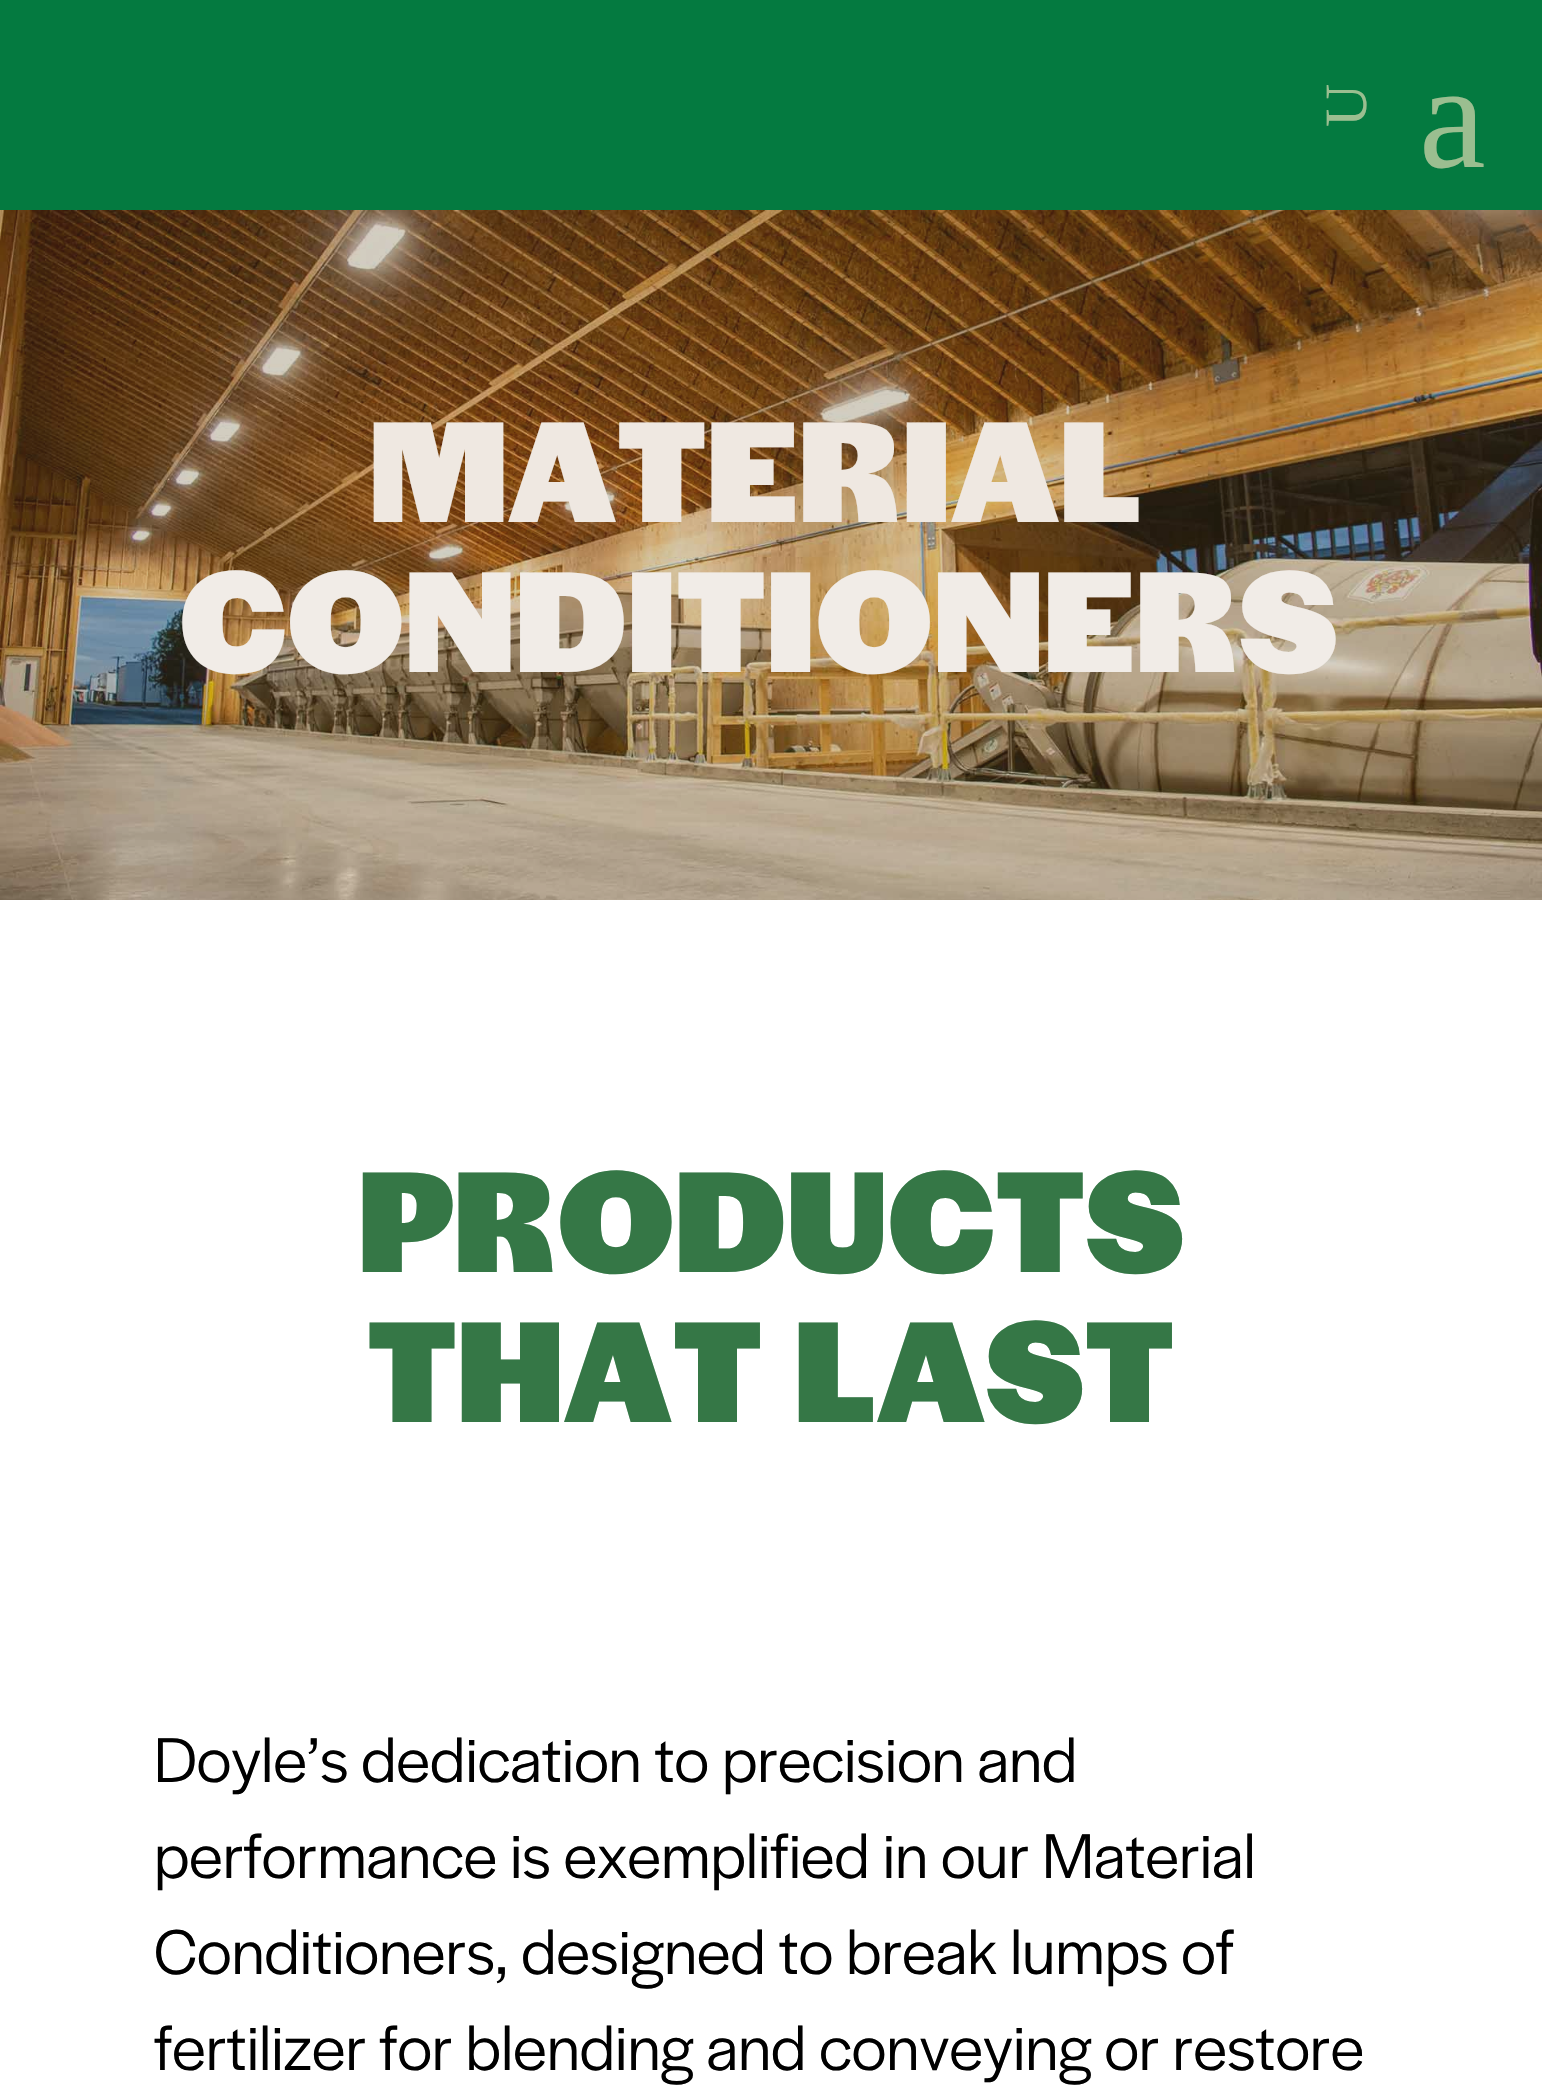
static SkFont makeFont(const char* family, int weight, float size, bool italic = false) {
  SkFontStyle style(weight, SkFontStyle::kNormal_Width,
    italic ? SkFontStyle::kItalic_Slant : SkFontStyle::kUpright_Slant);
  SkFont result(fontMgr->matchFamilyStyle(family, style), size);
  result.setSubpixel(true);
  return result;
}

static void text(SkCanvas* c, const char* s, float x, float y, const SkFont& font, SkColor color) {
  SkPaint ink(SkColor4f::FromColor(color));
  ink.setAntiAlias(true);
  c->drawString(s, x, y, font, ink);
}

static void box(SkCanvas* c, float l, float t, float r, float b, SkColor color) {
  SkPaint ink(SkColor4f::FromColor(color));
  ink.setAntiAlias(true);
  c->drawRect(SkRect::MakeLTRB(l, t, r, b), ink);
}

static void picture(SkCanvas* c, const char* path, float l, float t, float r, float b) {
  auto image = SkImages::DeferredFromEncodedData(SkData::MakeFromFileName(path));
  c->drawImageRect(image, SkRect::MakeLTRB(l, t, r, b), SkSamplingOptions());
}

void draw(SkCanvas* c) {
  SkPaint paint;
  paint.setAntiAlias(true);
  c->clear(0xffffffff);
  box(c, 0, 0, 1542, 210, 0xff047a40);
  SkFont face1 = makeFont("Liberation Serif", 400, 60);
  c->save();
  c->rotate(-90, 1366, 127);
  text(c, "U", 1366, 127, face1, 0xff9bbe90);
  c->restore();
  SkFont face2 = makeFont("Liberation Serif", 400, 150);
  text(c, "a", 1419, 167, face2, 0xff9bbe90);
  picture(c, "img_01.png", 0, 210, 1542, 900);
  SkFont face3 = makeFont("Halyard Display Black", 900, 150);
  text(c, "MATERIAL", 369, 522, face3, 0xffefe8e1);
  text(c, "CONDITIONERS", 179, 672, face3, 0xfff1ece7);
  text(c, "PRODUCTS", 358, 1272, face3, 0xff357746);
  text(c, "THAT LAST", 367, 1422, face3, 0xff357746);
  SkFont face4 = makeFont("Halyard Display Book", 400, 66);
  text(c, "Doyle’s dedication to precision and", 154, 1782, face4, 0xff000000);
  text(c, "performance is exemplified in our Material", 154, 1878, face4, 0xff000000);
  text(c, "Conditioners, designed to break lumps of", 154, 1974, face4, 0xff000000);
  text(c, "fertilizer for blending and conveying or restore", 154, 2070, face4, 0xff000000);
}
